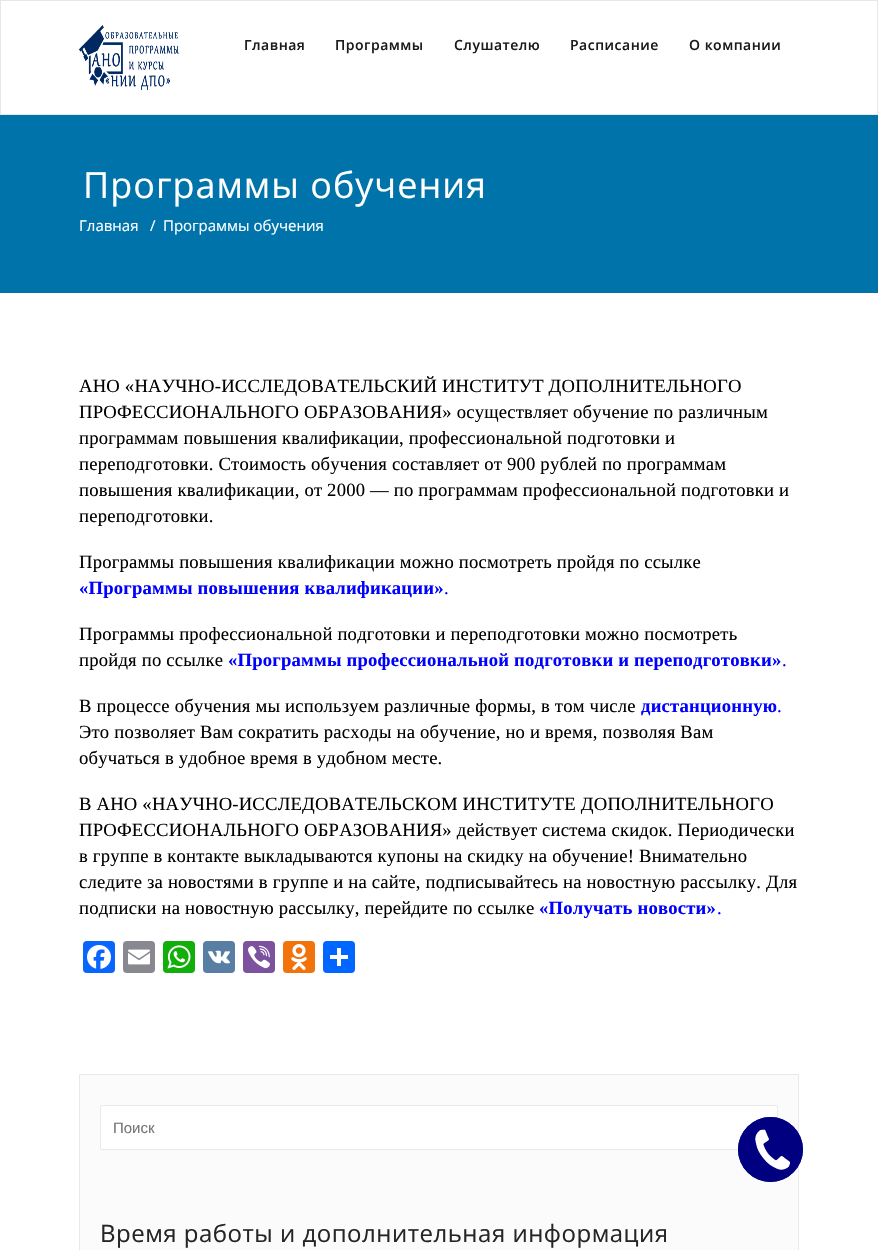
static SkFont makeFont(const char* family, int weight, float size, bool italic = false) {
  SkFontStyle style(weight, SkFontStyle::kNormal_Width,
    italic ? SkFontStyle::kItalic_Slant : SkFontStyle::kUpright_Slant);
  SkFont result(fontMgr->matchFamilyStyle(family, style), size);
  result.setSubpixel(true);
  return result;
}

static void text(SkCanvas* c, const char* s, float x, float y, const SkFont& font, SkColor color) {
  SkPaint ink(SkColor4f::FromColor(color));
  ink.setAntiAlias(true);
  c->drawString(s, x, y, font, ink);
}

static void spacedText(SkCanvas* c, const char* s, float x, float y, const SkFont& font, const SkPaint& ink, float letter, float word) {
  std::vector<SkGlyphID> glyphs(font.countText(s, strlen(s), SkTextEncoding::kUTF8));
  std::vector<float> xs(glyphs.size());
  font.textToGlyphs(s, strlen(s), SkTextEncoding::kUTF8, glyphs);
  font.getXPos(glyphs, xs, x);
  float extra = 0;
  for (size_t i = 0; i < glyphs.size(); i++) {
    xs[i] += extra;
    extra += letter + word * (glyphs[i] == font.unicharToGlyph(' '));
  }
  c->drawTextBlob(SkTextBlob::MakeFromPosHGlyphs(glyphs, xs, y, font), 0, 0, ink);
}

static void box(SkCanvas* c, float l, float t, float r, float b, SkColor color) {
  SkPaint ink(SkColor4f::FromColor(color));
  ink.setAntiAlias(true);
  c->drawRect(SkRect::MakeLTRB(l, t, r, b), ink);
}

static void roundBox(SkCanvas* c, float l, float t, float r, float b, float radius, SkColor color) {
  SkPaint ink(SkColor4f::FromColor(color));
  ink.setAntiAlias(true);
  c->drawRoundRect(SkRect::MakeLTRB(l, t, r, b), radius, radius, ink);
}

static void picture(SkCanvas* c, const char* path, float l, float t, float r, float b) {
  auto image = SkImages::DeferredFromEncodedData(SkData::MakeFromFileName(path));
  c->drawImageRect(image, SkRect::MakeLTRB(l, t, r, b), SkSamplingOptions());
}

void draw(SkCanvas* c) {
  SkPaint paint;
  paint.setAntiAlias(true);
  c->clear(0xffffffff);
  paint.setStyle(SkPaint::kStroke_Style);
  paint.setStrokeWidth(1);
  paint.setColor(0xffe7e7e7);
  c->drawRect(SkRect::MakeLTRB(0.5f, 0.5f, 877.5f, 114.5f), paint);
  picture(c, "img_01.png", 79, 25, 179, 90);
  SkFont face1 = makeFont("Open Sans", 600, 14);
  paint.setStyle(SkPaint::kFill_Style);
  paint.setColor(0xff1b1b1b);
  spacedText(c, "Главная", 244, 50, face1, paint, 0.5f, 0);
  spacedText(c, "Программы", 335, 50, face1, paint, 0.5f, 0);
  spacedText(c, "Слушателю", 454, 50, face1, paint, 0.5f, 0);
  spacedText(c, "Расписание", 570, 50, face1, paint, 0.5f, 0);
  spacedText(c, "О компании", 689, 50, face1, paint, 0.5f, 0);
  box(c, 0, 115, 878, 293, 0xff0073aa);
  SkFont face2 = makeFont("Open Sans", 400, 36);
  paint.setColor(0xffffffff);
  spacedText(c, "Программы обучения", 83, 198, face2, paint, 1, 0);
  SkFont face3 = makeFont("Open Sans", 400, 15);
  text(c, "Главная", 79, 231, face3, 0xffffffff);
  text(c, "/", 150, 231, face3, 0xffffffff);
  text(c, "Программы обучения", 163, 231, face3, 0xffffffff);
  SkFont face4 = makeFont("Liberation Serif", 400, 18.65f);
  paint.setColor(0xff000000);
  spacedText(c, "АНО «НАУЧНО-ИССЛЕДОВАТЕЛЬСКИЙ ИНСТИТУТ ДОПОЛНИТЕЛЬНОГО", 79, 392, face4, paint, 0.2f, 0);
  spacedText(c, "ПРОФЕССИОНАЛЬНОГО ОБРАЗОВАНИЯ» осуществляет обучение по различным", 79, 418, face4, paint, 0.2f, 0);
  spacedText(c, "программам повышения квалификации, профессиональной подготовки и", 79, 444, face4, paint, 0.2f, 0);
  spacedText(c, "переподготовки. Стоимость обучения составляет от 900 рублей по программам", 79, 470, face4, paint, 0.2f, 0);
  spacedText(c, "повышения квалификации, от 2000 — по программам профессиональной подготовки и", 79, 496, face4, paint, 0.2f, 0);
  spacedText(c, "переподготовки.", 79, 522, face4, paint, 0.2f, 0);
  spacedText(c, "Программы повышения квалификации можно посмотреть пройдя по ссылке", 79, 568, face4, paint, 0.2f, 0);
  SkFont face5 = makeFont("Liberation Serif", 700, 18.65f);
  paint.setColor(0xff0000ff);
  spacedText(c, "«Программы повышения квалификации»", 79, 594, face5, paint, 0.2f, 0);
  spacedText(c, ".", 444, 594, face4, paint, 0.2f, 0);
  paint.setColor(0xff000000);
  spacedText(c, "Программы профессиональной подготовки и переподготовки можно посмотреть", 79, 640, face4, paint, 0.2f, 0);
  spacedText(c, "пройдя по ссылке", 79, 666, face4, paint, 0.2f, 0);
  paint.setColor(0xff0000ff);
  spacedText(c, "«Программы профессиональной подготовки и переподготовки»", 228, 666, face5, paint, 0.2f, 0);
  spacedText(c, ".", 782, 666, face4, paint, 0.2f, 0);
  paint.setColor(0xff000000);
  spacedText(c, "В процессе обучения мы используем различные формы, в том числе", 79, 712, face4, paint, 0.2f, 0);
  paint.setColor(0xff0000ff);
  spacedText(c, "дистанционную", 641, 712, face5, paint, 0.2f, 0);
  spacedText(c, ".", 777, 712, face4, paint, 0.2f, 0);
  paint.setColor(0xff000000);
  spacedText(c, "Это позволяет Вам сократить расходы на обучение, но и время, позволяя Вам", 79, 738, face4, paint, 0.2f, 0);
  spacedText(c, "обучаться в удобное время в удобном месте.", 79, 764, face4, paint, 0.2f, 0);
  spacedText(c, "В АНО «НАУЧНО-ИССЛЕДОВАТЕЛЬСКОМ ИНСТИТУТЕ ДОПОЛНИТЕЛЬНОГО", 79, 810, face4, paint, 0.2f, 0);
  spacedText(c, "ПРОФЕССИОНАЛЬНОГО ОБРАЗОВАНИЯ» действует система скидок. Периодически", 79, 836, face4, paint, 0.2f, 0);
  spacedText(c, "в группе в контакте выкладываются купоны на скидку на обучение! Внимательно", 79, 862, face4, paint, 0.2f, 0);
  spacedText(c, "следите за новостями в группе и на сайте, подписывайтесь на новостную рассылку. Для", 79, 888, face4, paint, 0.2f, 0);
  spacedText(c, "подписки на новостную рассылку, перейдите по ссылке", 79, 914, face4, paint, 0.2f, 0);
  paint.setColor(0xff0000ff);
  spacedText(c, "«Получать новости»", 539, 914, face5, paint, 0.2f, 0);
  spacedText(c, ".", 717, 914, face4, paint, 0.2f, 0);
  roundBox(c, 83, 941, 115, 973, 4, 0xff0866ff);
  picture(c, "img_02.png", 87, 945, 111, 969);
  roundBox(c, 123, 941, 155, 973, 4, 0xff888990);
  picture(c, "img_03.png", 128, 949, 150, 965);
  roundBox(c, 163, 941, 195, 973, 4, 0xff12af0a);
  picture(c, "img_04.png", 167, 945, 191, 969);
  roundBox(c, 203, 941, 235, 973, 4, 0xff587ea3);
  picture(c, "img_05.png", 208, 950, 230, 964);
  roundBox(c, 243, 941, 275, 973, 4, 0xff7c529e);
  picture(c, "img_06.png", 248, 945, 270, 969);
  roundBox(c, 283, 941, 315, 973, 4, 0xfff2720c);
  picture(c, "img_07.png", 291, 944, 307, 970);
  roundBox(c, 323, 941, 355, 973, 4, 0xff0166ff);
  box(c, 337, 948, 341, 966, 0xffffffff);
  box(c, 330, 955, 348, 959, 0xffffffff);
  paint.setColor(0xfffbfbfb);
  c->drawRect(SkRect::MakeLTRB(79.5f, 1074.5f, 798.5f, 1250.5f), paint);
  paint.setStyle(SkPaint::kStroke_Style);
  paint.setColor(0xffe9e9e9);
  c->drawRect(SkRect::MakeLTRB(79.5f, 1074.5f, 798.5f, 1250.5f), paint);
  paint.setStyle(SkPaint::kFill_Style);
  paint.setColor(0xffffffff);
  c->drawRoundRect(SkRect::MakeLTRB(100.5f, 1105.5f, 777.5f, 1149.5f), 1.5f, 1.5f, paint);
  paint.setStyle(SkPaint::kStroke_Style);
  paint.setColor(0xffe9e9e9);
  c->drawRoundRect(SkRect::MakeLTRB(100.5f, 1105.5f, 777.5f, 1149.5f), 1.5f, 1.5f, paint);
  SkFont face6 = makeFont("Liberation Sans", 400, 15);
  text(c, "Поиск", 113, 1133, face6, 0xff757575);
  SkFont face7 = makeFont("Open Sans", 400, 24);
  paint.setStyle(SkPaint::kFill_Style);
  paint.setColor(0xff242526);
  spacedText(c, "Время работы и дополнительная информация", 100, 1242, face7, paint, 0.5f, 0);
  paint.setStyle(SkPaint::kStroke_Style);
  paint.setColor(0xff000080);
  c->drawCircle(770.5f, 1149.5f, 32, paint);
  paint.setStyle(SkPaint::kFill_Style);
  c->drawCircle(770.5f, 1149.5f, 32.5f, paint);
  picture(c, "img_08.png", 755, 1129, 790, 1170);
}
